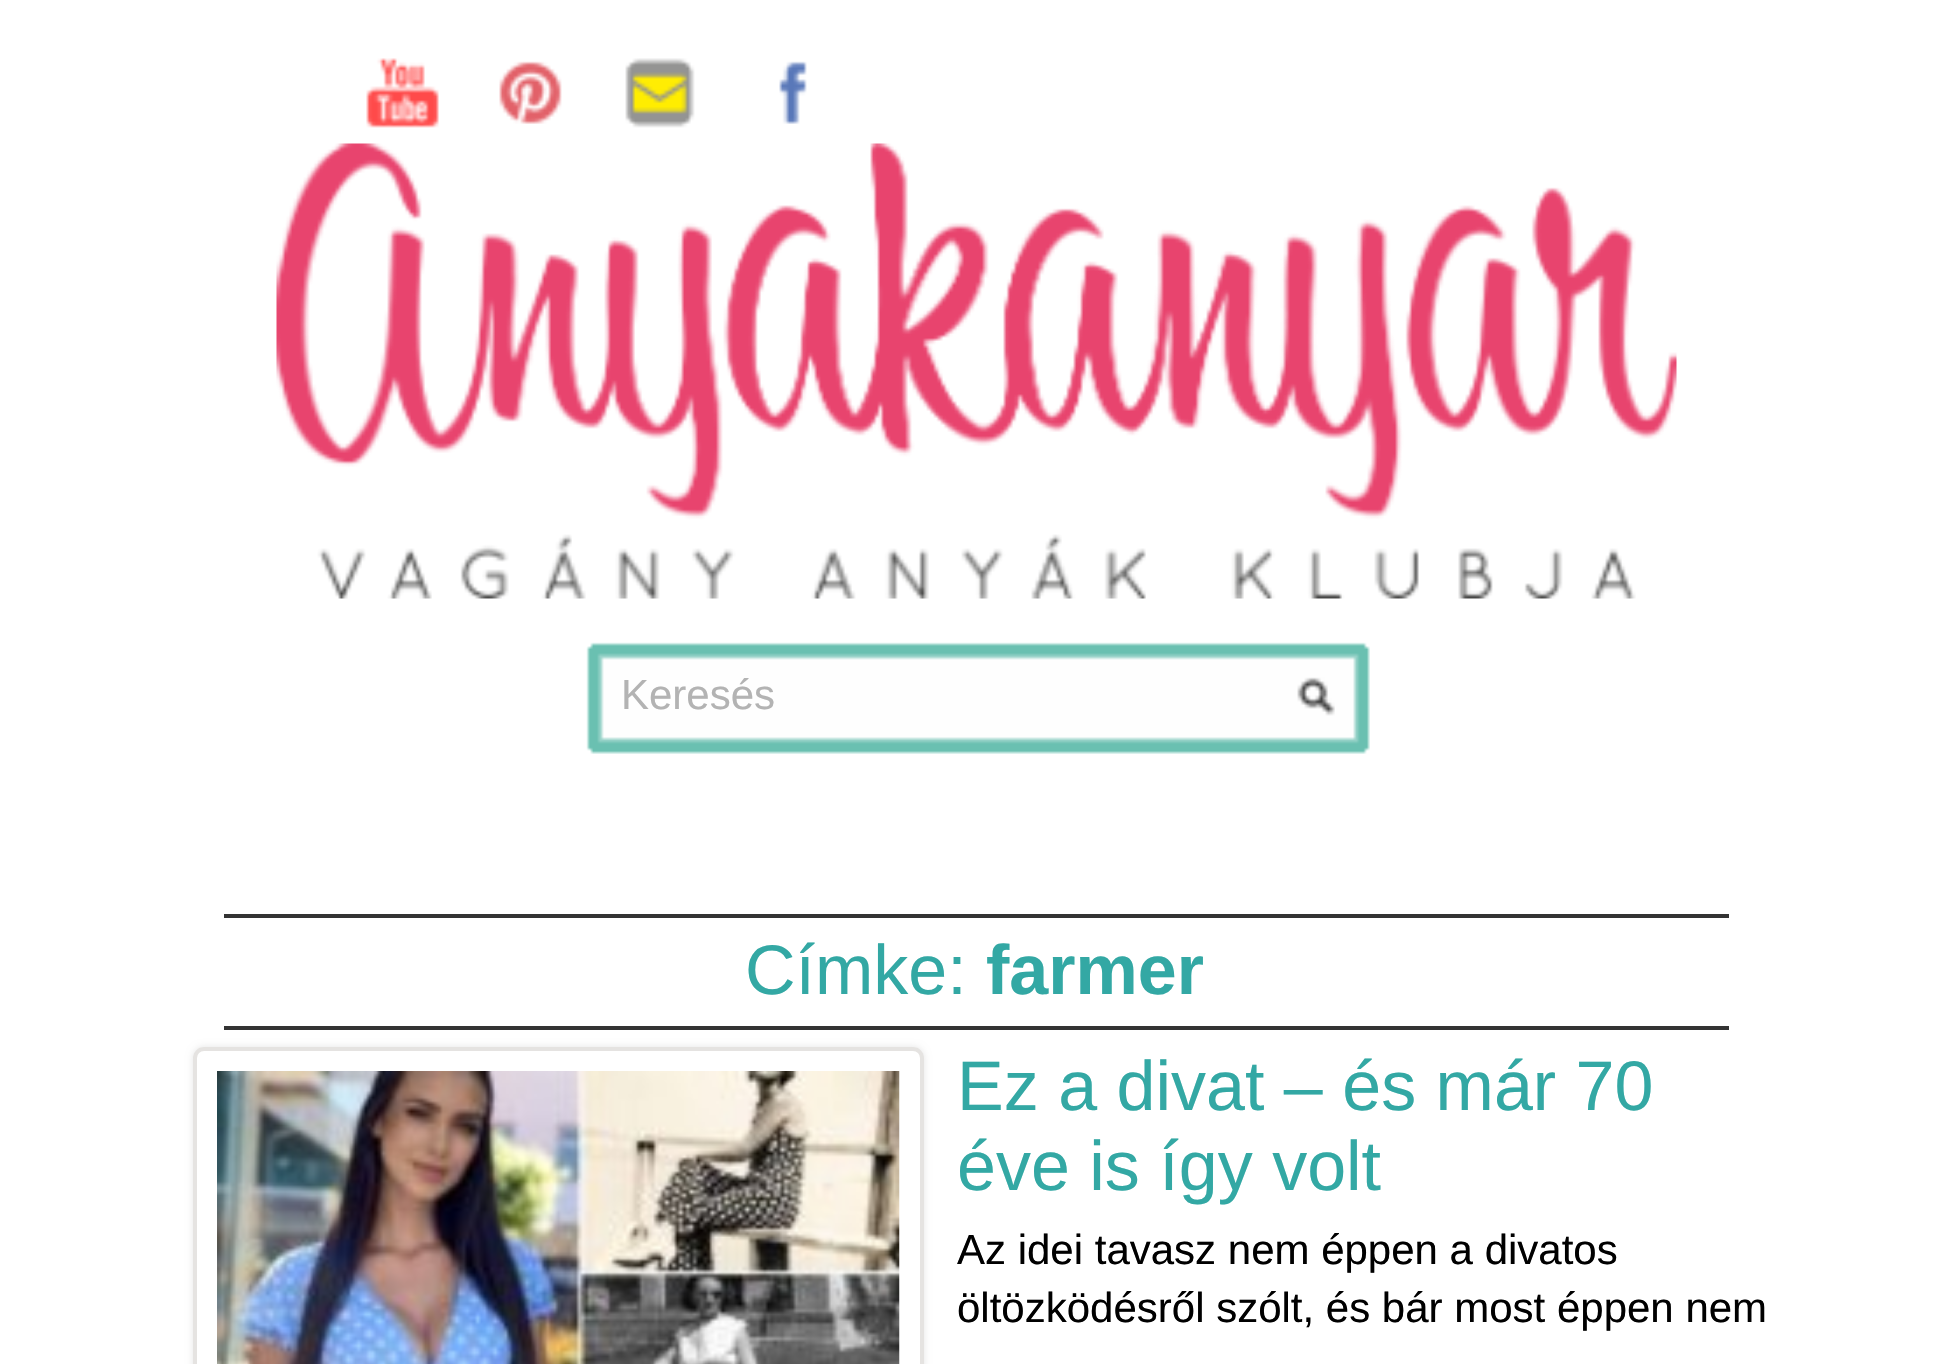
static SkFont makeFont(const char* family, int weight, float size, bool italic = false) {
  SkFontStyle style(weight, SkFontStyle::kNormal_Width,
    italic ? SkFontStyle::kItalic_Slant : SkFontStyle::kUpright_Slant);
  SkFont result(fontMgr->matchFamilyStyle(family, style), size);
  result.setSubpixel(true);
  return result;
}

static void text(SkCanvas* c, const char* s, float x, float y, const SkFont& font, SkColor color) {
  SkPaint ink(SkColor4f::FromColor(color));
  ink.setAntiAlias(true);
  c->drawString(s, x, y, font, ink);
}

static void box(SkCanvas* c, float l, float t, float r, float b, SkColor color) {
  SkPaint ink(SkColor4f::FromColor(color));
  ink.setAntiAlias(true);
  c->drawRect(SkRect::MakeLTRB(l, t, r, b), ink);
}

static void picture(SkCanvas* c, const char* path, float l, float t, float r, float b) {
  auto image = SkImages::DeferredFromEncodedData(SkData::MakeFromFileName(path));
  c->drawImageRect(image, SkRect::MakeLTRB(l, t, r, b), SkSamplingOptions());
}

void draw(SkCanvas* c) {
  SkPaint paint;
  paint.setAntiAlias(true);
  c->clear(0xffffffff);
  picture(c, "img_01.png", 366, 58, 439, 128);
  picture(c, "img_02.png", 499, 61, 562, 124);
  picture(c, "img_03.png", 625, 58, 695, 128);
  picture(c, "img_04.png", 779, 61, 807, 124);
  picture(c, "img_05.png", 276, 143, 1677, 599);
  picture(c, "img_06.png", 586, 642, 1370, 754);
  SkFont face1 = makeFont("Liberation Sans", 400, 42);
  text(c, "Keresés", 621, 709, face1, 0xffb3b3b3);
  box(c, 224, 914, 1729, 918, 0xff333333);
  box(c, 224, 1026, 1729, 1030, 0xff333333);
  SkFont face2 = makeFont("Liberation Sans", 400, 70);
  text(c, "Címke:", 745, 994, face2, 0xff33a8a4);
  SkFont face3 = makeFont("Liberation Sans", 700, 70);
  text(c, "farmer", 986, 994, face3, 0xff33a8a4);
  c->save();
  c->clipPath(SkPathBuilder(SkPathFillType::kEvenOdd).moveTo(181, 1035).lineTo(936, 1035).lineTo(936, 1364).lineTo(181, 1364).close().moveTo(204, 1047).lineTo(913, 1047).cubicTo(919, 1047, 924, 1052, 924, 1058).lineTo(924, 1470).cubicTo(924, 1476, 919, 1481, 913, 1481).lineTo(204, 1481).cubicTo(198, 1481, 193, 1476, 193, 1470).lineTo(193, 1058).cubicTo(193, 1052, 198, 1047, 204, 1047).close().detach(), true);
  paint.setColor(0xffe5e5e5);
  paint.setMaskFilter(SkMaskFilter::MakeBlur(kNormal_SkBlurStyle, 3.5f));
  c->drawRoundRect(SkRect::MakeLTRB(193, 1047, 924, 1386), 11, 11, paint);
  paint.setMaskFilter(nullptr);
  c->restore();
  paint.setStyle(SkPaint::kStroke_Style);
  paint.setStrokeWidth(4);
  paint.setColor(0xffe5e3e1);
  c->drawRoundRect(SkRect::MakeLTRB(195, 1049, 922, 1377), 9, 9, paint);
  picture(c, "img_07.png", 217, 1071, 900, 1364);
  text(c, "Ez a divat – és már 70", 957, 1110, face2, 0xff33a8a4);
  text(c, "éve is így volt", 957, 1190, face2, 0xff33a8a4);
  text(c, "Az idei tavasz nem éppen a divatos", 957, 1264, face1, 0xff000000);
  text(c, "öltözködésről szólt, és bár most éppen nem", 957, 1322, face1, 0xff000000);
}
